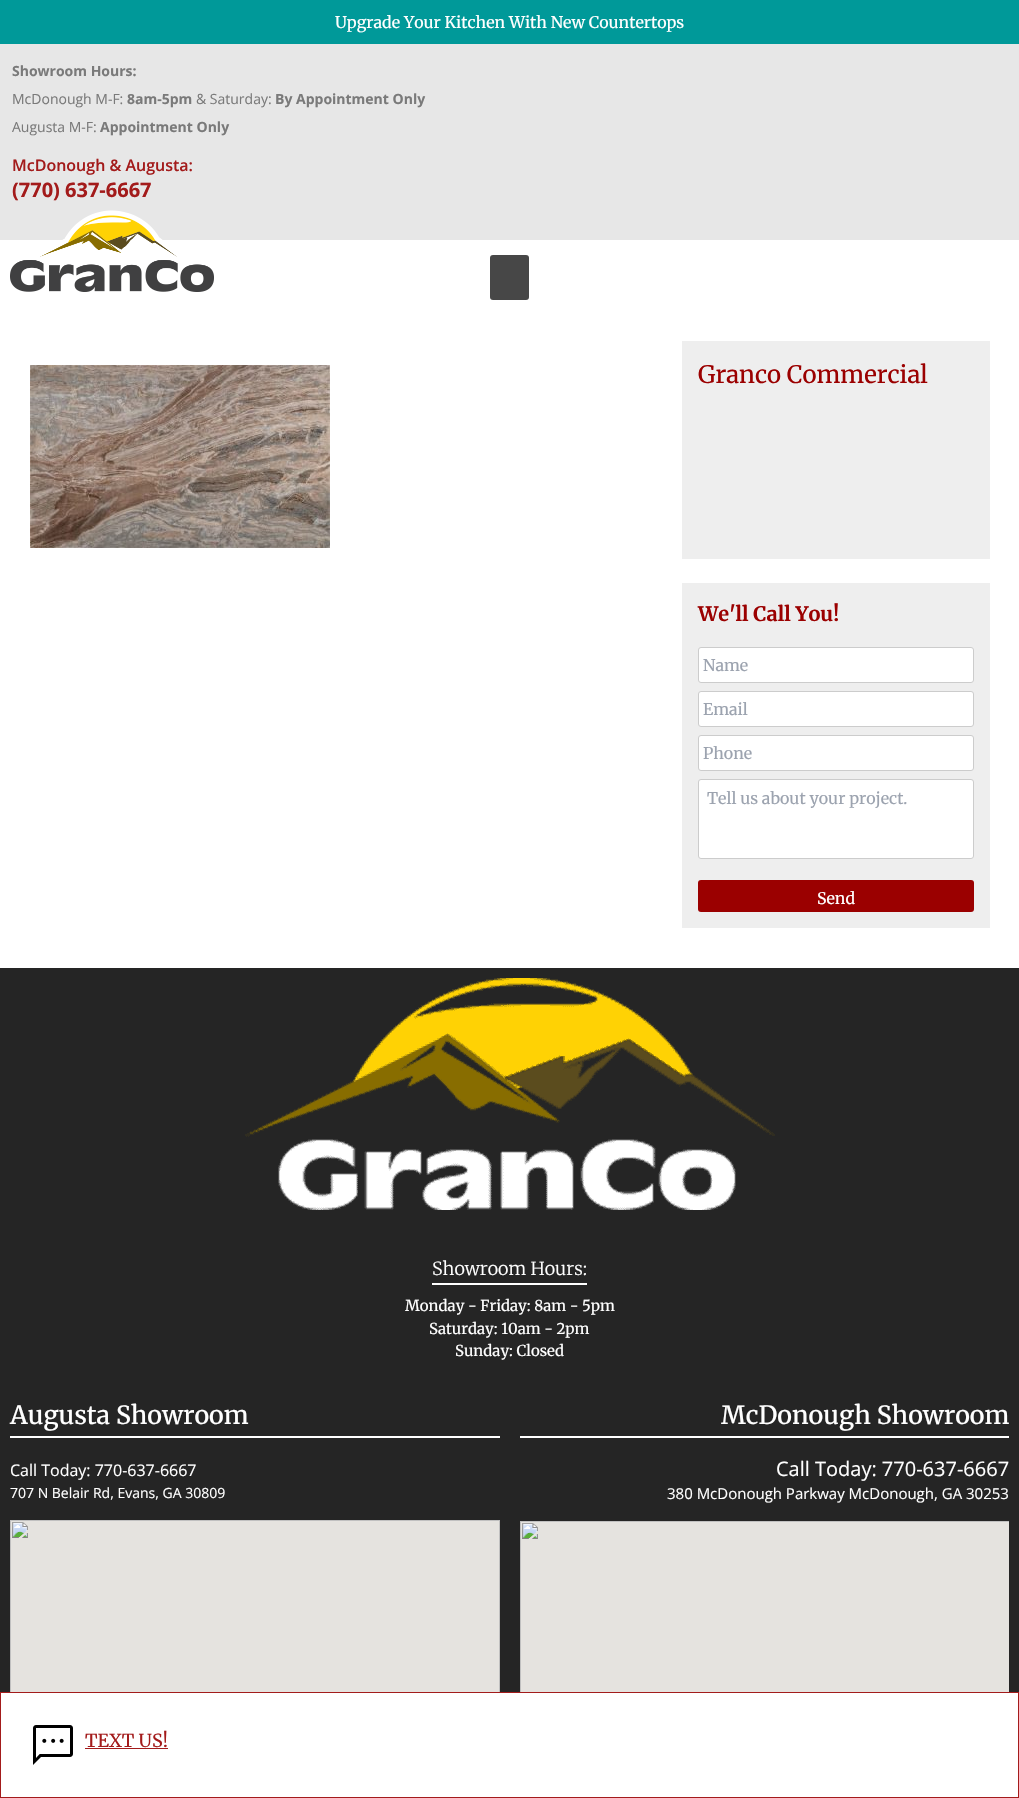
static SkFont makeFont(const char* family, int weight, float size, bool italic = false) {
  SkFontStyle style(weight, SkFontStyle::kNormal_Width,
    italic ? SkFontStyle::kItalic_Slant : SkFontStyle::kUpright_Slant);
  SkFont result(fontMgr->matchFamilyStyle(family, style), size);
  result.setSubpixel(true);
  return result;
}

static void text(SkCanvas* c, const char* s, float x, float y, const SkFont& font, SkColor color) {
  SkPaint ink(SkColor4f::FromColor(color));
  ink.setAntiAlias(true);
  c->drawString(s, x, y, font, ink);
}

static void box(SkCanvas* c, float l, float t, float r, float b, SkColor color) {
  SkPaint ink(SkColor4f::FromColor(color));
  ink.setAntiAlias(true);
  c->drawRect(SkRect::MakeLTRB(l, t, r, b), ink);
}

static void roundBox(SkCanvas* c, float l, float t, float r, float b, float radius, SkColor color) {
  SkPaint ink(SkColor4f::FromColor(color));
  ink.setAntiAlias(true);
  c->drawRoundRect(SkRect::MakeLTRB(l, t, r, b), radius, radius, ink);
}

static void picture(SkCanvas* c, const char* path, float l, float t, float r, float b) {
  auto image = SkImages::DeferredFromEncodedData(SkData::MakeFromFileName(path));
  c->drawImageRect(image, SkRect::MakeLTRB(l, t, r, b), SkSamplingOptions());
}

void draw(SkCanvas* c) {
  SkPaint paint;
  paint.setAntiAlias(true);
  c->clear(0xffffffff);
  box(c, 0, 0, 1019, 44, 0xff009999);
  SkFont face1 = makeFont("Merriweather", 400, 16);
  text(c, "Upgrade Your Kitchen With New Countertops", 335, 28, face1, 0xffffffff);
  box(c, 0, 44, 1019, 240, 0xffe7e7e7);
  SkFont face2 = makeFont("Open Sans", 700, 14);
  text(c, "Showroom Hours:", 12, 76, face2, 0xff7a7a7a);
  SkFont face3 = makeFont("Open Sans", 400, 14);
  text(c, "McDonough M-F:", 12, 104, face3, 0xff7a7a7a);
  text(c, "8am-5pm", 127, 104, face2, 0xff7a7a7a);
  text(c, "& Saturday:", 196, 104, face3, 0xff7a7a7a);
  text(c, "By Appointment Only", 275, 104, face2, 0xff7a7a7a);
  text(c, "Augusta M-F:", 12, 132, face3, 0xff7a7a7a);
  text(c, "Appointment Only", 100, 132, face2, 0xff7a7a7a);
  SkFont face4 = makeFont("Open Sans", 600, 16);
  text(c, "McDonough & Augusta:", 12, 171, face4, 0xffa31b1b);
  SkFont face5 = makeFont("Open Sans", 700, 20);
  text(c, "(770) 637-6667", 12, 197, face5, 0xffa31b1b);
  picture(c, "img_01.png", 10, 210, 214, 292);
  roundBox(c, 490, 255, 529, 300, 3, 0xff474747);
  picture(c, "img_02.png", 30, 365, 330, 548);
  box(c, 682, 341, 990, 559, 0xffeeeeee);
  SkFont face6 = makeFont("Merriweather", 400, 24);
  text(c, "Granco Commercial", 698, 383, face6, 0xff9b0000);
  box(c, 682, 583, 990, 928, 0xffeeeeee);
  SkFont face7 = makeFont("Merriweather", 700, 20);
  text(c, "We'll Call You!", 698, 621, face7, 0xff9b0000);
  paint.setColor(0xffffffff);
  c->drawRoundRect(SkRect::MakeLTRB(698.5f, 647.5f, 973.5f, 682.5f), 2.5f, 2.5f, paint);
  paint.setStyle(SkPaint::kStroke_Style);
  paint.setStrokeWidth(1);
  paint.setColor(0xffcccccc);
  c->drawRoundRect(SkRect::MakeLTRB(698.5f, 647.5f, 973.5f, 682.5f), 2.5f, 2.5f, paint);
  text(c, "Name", 703, 671, face1, 0xff9ca3af);
  paint.setStyle(SkPaint::kFill_Style);
  paint.setColor(0xffffffff);
  c->drawRoundRect(SkRect::MakeLTRB(698.5f, 691.5f, 973.5f, 726.5f), 2.5f, 2.5f, paint);
  paint.setStyle(SkPaint::kStroke_Style);
  paint.setColor(0xffcccccc);
  c->drawRoundRect(SkRect::MakeLTRB(698.5f, 691.5f, 973.5f, 726.5f), 2.5f, 2.5f, paint);
  text(c, "Email", 703, 715, face1, 0xff9ca3af);
  paint.setStyle(SkPaint::kFill_Style);
  paint.setColor(0xffffffff);
  c->drawRoundRect(SkRect::MakeLTRB(698.5f, 735.5f, 973.5f, 770.5f), 2.5f, 2.5f, paint);
  paint.setStyle(SkPaint::kStroke_Style);
  paint.setColor(0xffcccccc);
  c->drawRoundRect(SkRect::MakeLTRB(698.5f, 735.5f, 973.5f, 770.5f), 2.5f, 2.5f, paint);
  text(c, "Phone", 703, 759, face1, 0xff9ca3af);
  paint.setStyle(SkPaint::kFill_Style);
  paint.setColor(0xffffffff);
  c->drawRoundRect(SkRect::MakeLTRB(698.5f, 779.5f, 973.5f, 858.5f), 2.5f, 2.5f, paint);
  paint.setStyle(SkPaint::kStroke_Style);
  paint.setColor(0xffcccccc);
  c->drawRoundRect(SkRect::MakeLTRB(698.5f, 779.5f, 973.5f, 858.5f), 2.5f, 2.5f, paint);
  text(c, "Tell us about your project.", 707, 804, face1, 0xff9ca3af);
  roundBox(c, 698, 880, 974, 912, 3, 0xff9b0000);
  text(c, "Send", 817, 904, face1, 0xffffffff);
  box(c, 0, 968, 1019, 1692, 0xff252525);
  picture(c, "img_03.png", 245, 978, 775, 1210);
  box(c, 432, 1283, 587, 1285, 0xffffffff);
  SkFont face8 = makeFont("Merriweather", 300, 18);
  text(c, "Showroom Hours:", 432, 1275, face8, 0xffffffff);
  SkFont face9 = makeFont("Merriweather", 400, 15);
  text(c, "Monday - Friday: 8am - 5pm", 405, 1311, face9, 0xffffffff);
  text(c, "Saturday: 10am - 2pm", 429, 1334, face9, 0xffffffff);
  text(c, "Sunday: Closed", 455, 1356, face9, 0xffffffff);
  box(c, 10, 1436, 500, 1438, 0xffffffff);
  SkFont face10 = makeFont("Merriweather", 500, 25);
  text(c, "Augusta Showroom", 10, 1424, face10, 0xffffffff);
  SkFont face11 = makeFont("Open Sans", 400, 16);
  text(c, "Call Today: 770-637-6667", 10, 1476, face11, 0xffffffff);
  text(c, "707 N Belair Rd, Evans, GA 30809", 10, 1498, face3, 0xffffffff);
  picture(c, "img_04.png", 10, 1520, 500, 1692);
  box(c, 520, 1436, 1009, 1438, 0xffffffff);
  text(c, "McDonough Showroom", 721, 1424, face10, 0xffffffff);
  SkFont face12 = makeFont("Open Sans", 400, 20);
  text(c, "Call Today: 770-637-6667", 776, 1476, face12, 0xffffffff);
  SkFont face13 = makeFont("Open Sans", 400, 15);
  text(c, "380 McDonough Parkway McDonough, GA 30253", 667, 1499, face13, 0xffffffff);
  picture(c, "img_05.png", 520, 1521, 1009, 1692);
  paint.setColor(0xffa31b1b);
  c->drawRect(SkRect::MakeLTRB(0.5f, 1692.5f, 1018.5f, 1797.5f), paint);
  picture(c, "img_06.png", 33, 1725, 73, 1765);
  SkFont face14 = makeFont("Merriweather", 400, 18);
  text(c, "TEXT US!", 85, 1747, face14, 0xffa31b1b);
  box(c, 85, 1748, 168, 1749, 0xffa31b1b);
}
